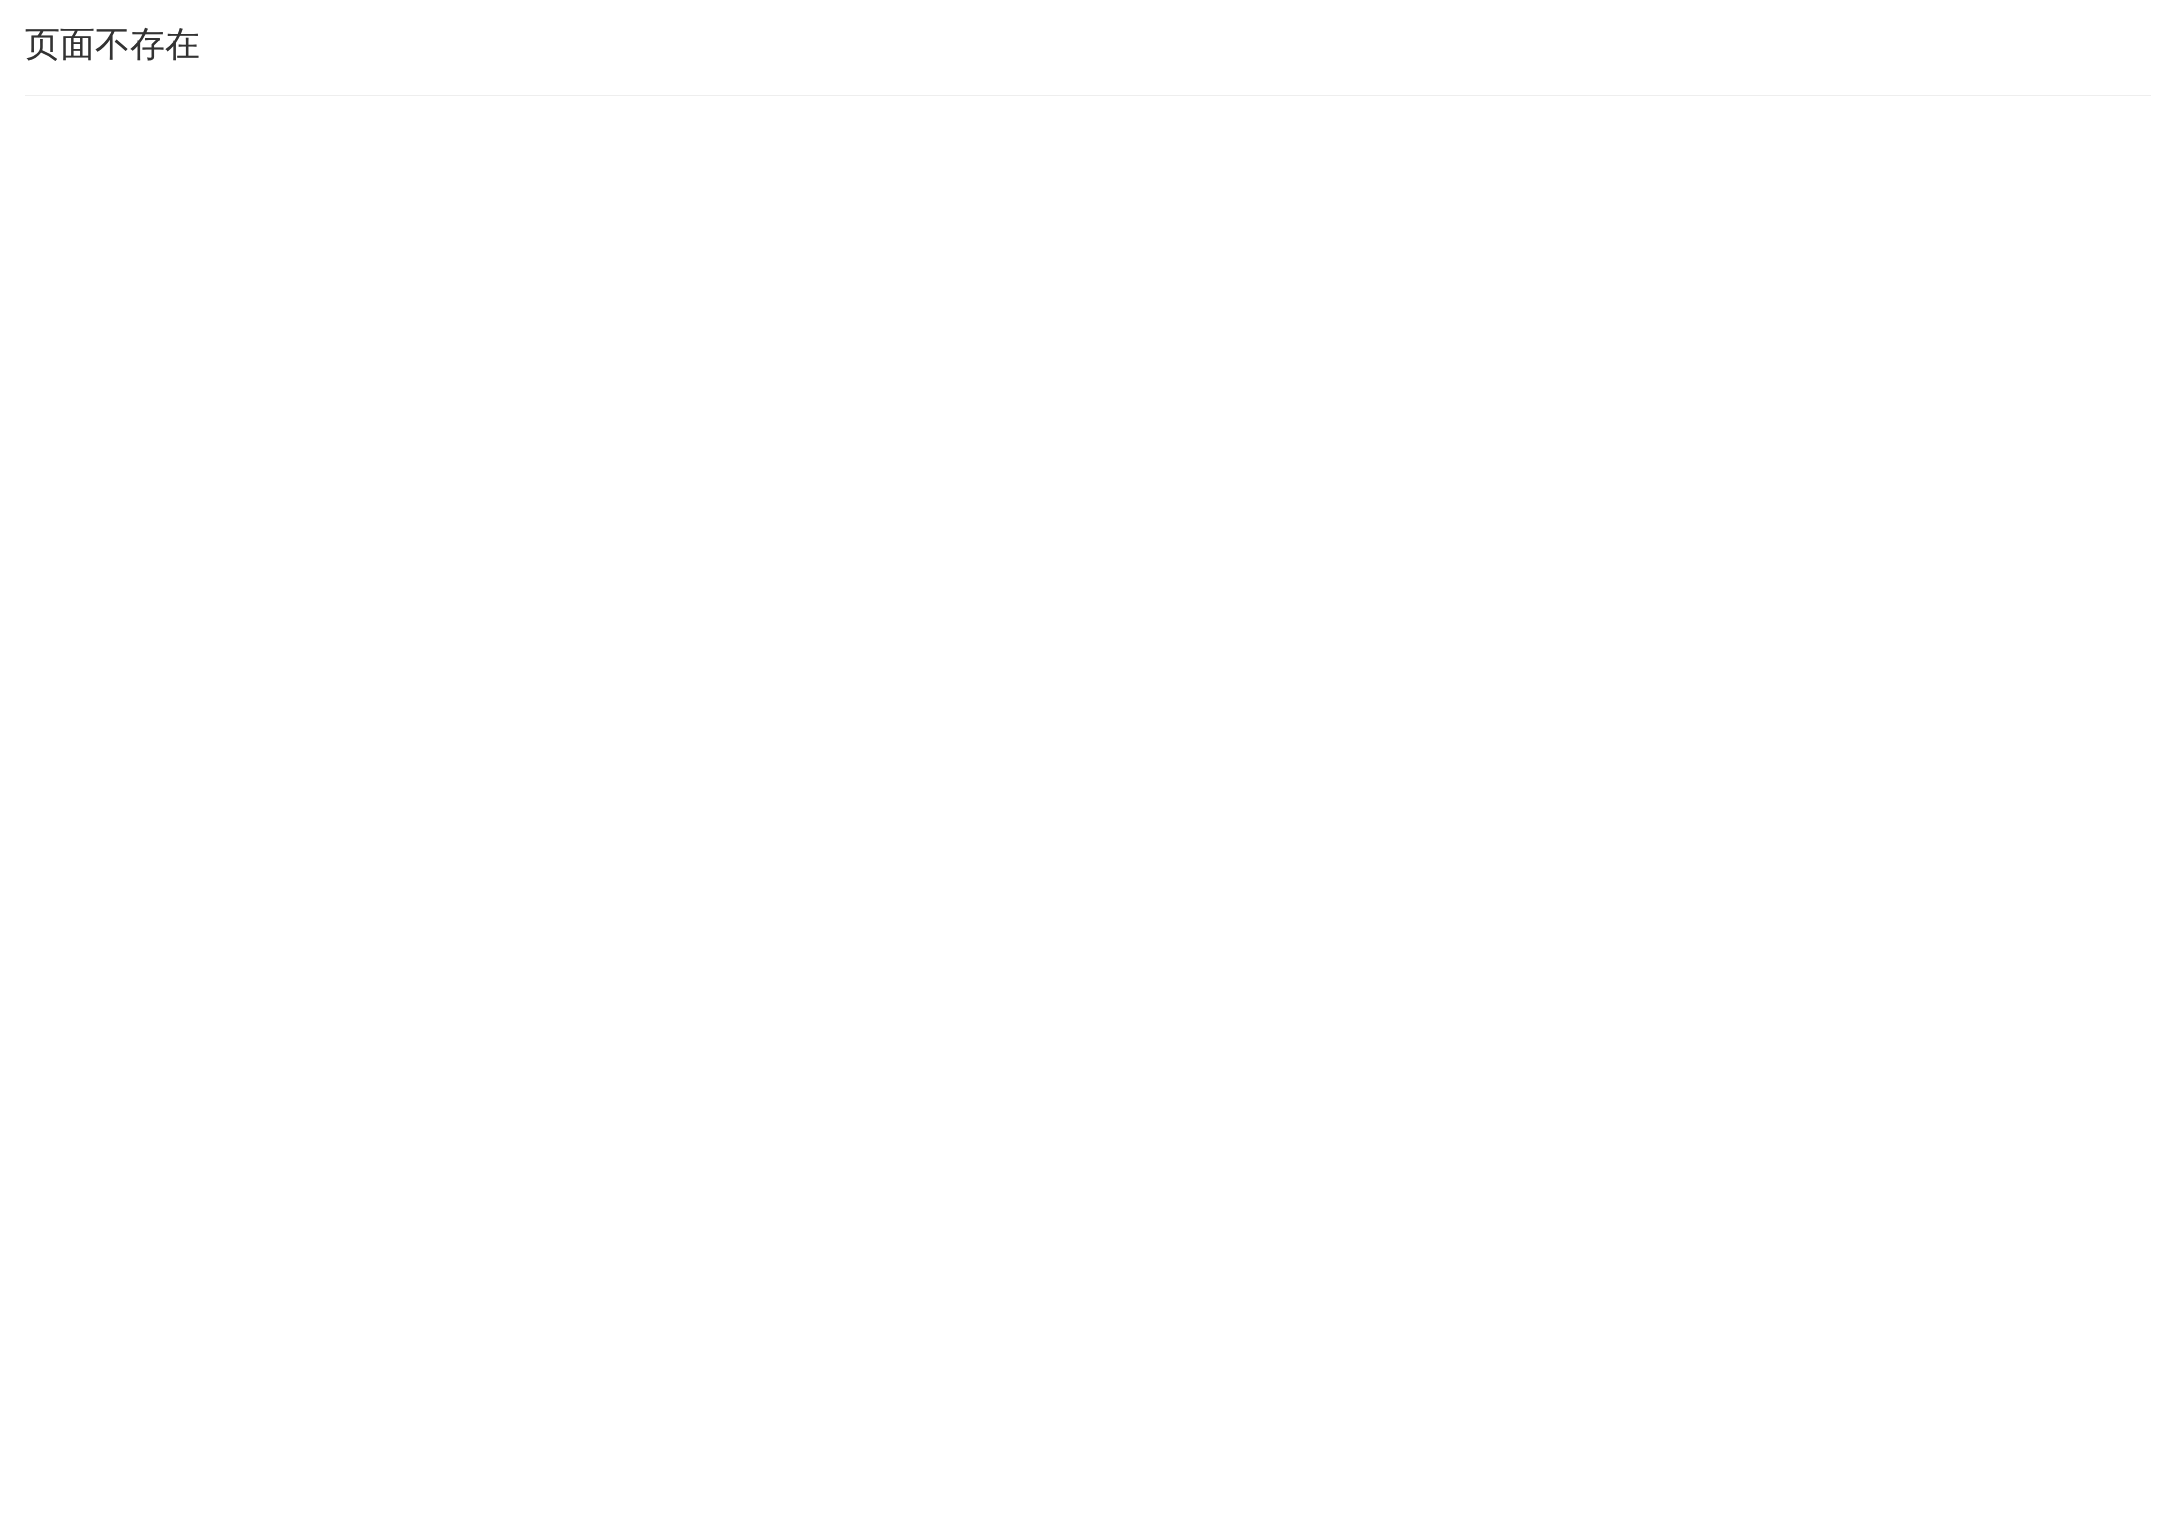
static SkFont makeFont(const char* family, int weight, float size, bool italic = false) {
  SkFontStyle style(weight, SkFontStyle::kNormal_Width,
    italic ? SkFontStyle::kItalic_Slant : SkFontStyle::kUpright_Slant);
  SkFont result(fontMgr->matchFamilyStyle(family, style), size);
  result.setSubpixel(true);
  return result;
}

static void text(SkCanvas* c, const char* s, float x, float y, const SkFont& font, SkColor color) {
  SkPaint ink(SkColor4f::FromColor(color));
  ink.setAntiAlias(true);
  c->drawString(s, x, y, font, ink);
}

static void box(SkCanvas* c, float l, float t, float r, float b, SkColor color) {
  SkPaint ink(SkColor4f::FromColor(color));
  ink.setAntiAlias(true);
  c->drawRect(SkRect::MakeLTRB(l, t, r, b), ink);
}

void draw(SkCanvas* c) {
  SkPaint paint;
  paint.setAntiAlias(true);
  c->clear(0xffffffff);
  SkFont face1 = makeFont("WenQuanYi Zen Hei", 500, 35);
  text(c, "页面不存在", 25, 56, face1, 0xff333333);
  box(c, 25, 95, 2151, 96, 0xffeeeeee);
}
